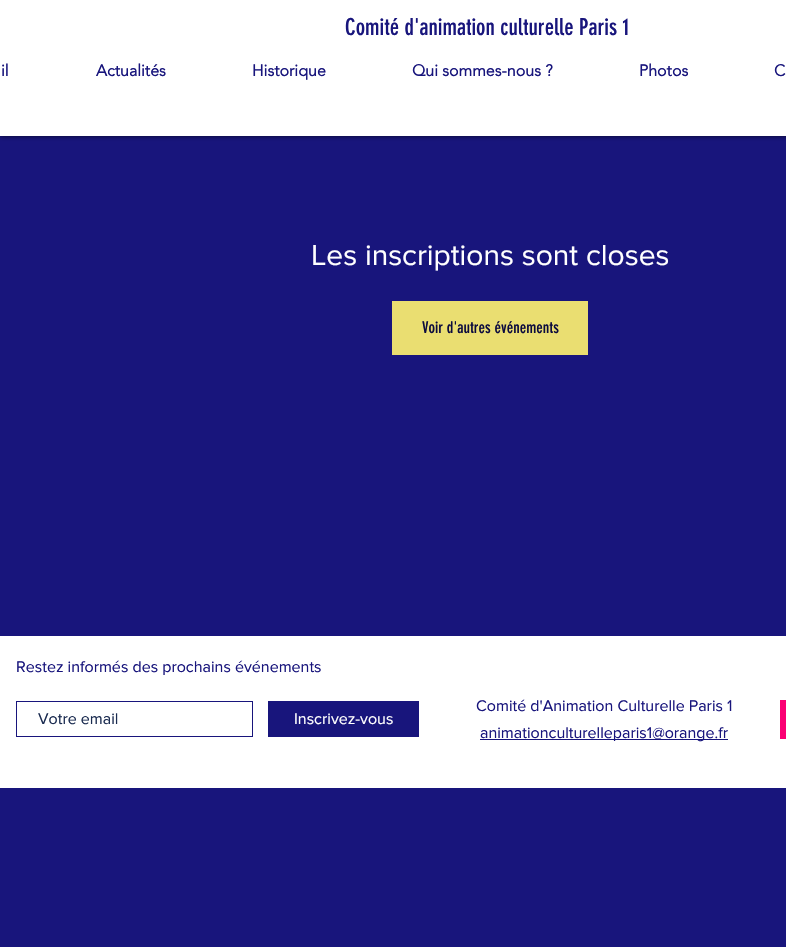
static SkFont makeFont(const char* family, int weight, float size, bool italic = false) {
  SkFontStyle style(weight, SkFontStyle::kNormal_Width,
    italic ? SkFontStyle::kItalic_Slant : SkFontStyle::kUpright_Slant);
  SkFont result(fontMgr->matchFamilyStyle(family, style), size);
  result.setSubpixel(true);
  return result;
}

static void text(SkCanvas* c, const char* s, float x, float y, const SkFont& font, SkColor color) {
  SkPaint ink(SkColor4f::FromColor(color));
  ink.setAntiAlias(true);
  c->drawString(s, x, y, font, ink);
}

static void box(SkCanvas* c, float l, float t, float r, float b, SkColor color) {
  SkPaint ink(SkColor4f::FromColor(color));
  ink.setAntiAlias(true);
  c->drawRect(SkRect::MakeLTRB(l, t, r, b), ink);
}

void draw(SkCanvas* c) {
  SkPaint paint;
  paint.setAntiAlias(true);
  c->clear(0xff18157c);
  paint.setColor(0xb3000000);
  paint.setMaskFilter(SkMaskFilter::MakeBlur(kNormal_SkBlurStyle, 2.5f));
  c->drawRect(SkRect::MakeLTRB(0, 0, 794, 136), paint);
  paint.setMaskFilter(nullptr);
  box(c, 0, 0, 786, 136, 0xffffffff);
  SkFont face1 = makeFont("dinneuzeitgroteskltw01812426", 400, 23);
  text(c, "Comité d'animation culturelle Paris 1", 345, 35, face1, 0xff18157c);
  SkFont face2 = makeFont("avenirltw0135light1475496", 700, 16);
  text(c, "il", 1, 76, face2, 0xff18157c);
  text(c, "Actualités", 96, 76, face2, 0xff18157c);
  text(c, "Historique", 252, 76, face2, 0xff18157c);
  text(c, "Qui sommes-nous ?", 412, 76, face2, 0xff18157c);
  text(c, "Photos", 639, 76, face2, 0xff18157c);
  text(c, "C", 774, 76, face2, 0xff18157c);
  SkFont face3 = makeFont("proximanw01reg", 400, 30);
  text(c, "Les inscriptions sont closes", 311, 265, face3, 0xffffffff);
  box(c, 392, 301, 588, 355, 0xffeade71);
  SkFont face4 = makeFont("dinneuzeitgroteskltw01812426", 400, 16);
  text(c, "Voir d'autres événements", 422, 333, face4, 0xff0c0b3e);
  box(c, 0, 636, 786, 788, 0xffffffff);
  SkFont face5 = makeFont("proximanw01reg", 400, 16);
  text(c, "Restez informés des prochains événements", 16, 672, face5, 0xff18157c);
  paint.setStyle(SkPaint::kStroke_Style);
  paint.setStrokeWidth(1);
  paint.setColor(0xff18157c);
  c->drawRect(SkRect::MakeLTRB(16.5f, 701.5f, 252.5f, 736.5f), paint);
  text(c, "Votre email", 38, 724, face5, 0xff1a2b50);
  box(c, 268, 701, 419, 737, 0xff18157c);
  text(c, "Inscrivez-vous", 294, 724, face5, 0xffffffff);
  text(c, "Comité d'Animation Culturelle Paris 1", 476, 711, face5, 0xff18157c);
  box(c, 480, 739, 728, 740, 0xff18157c);
  text(c, "animationculturelleparis1@orange.fr", 480, 738, face5, 0xff18157c);
  box(c, 780, 700, 786, 739, 0xfffb0074);
}
